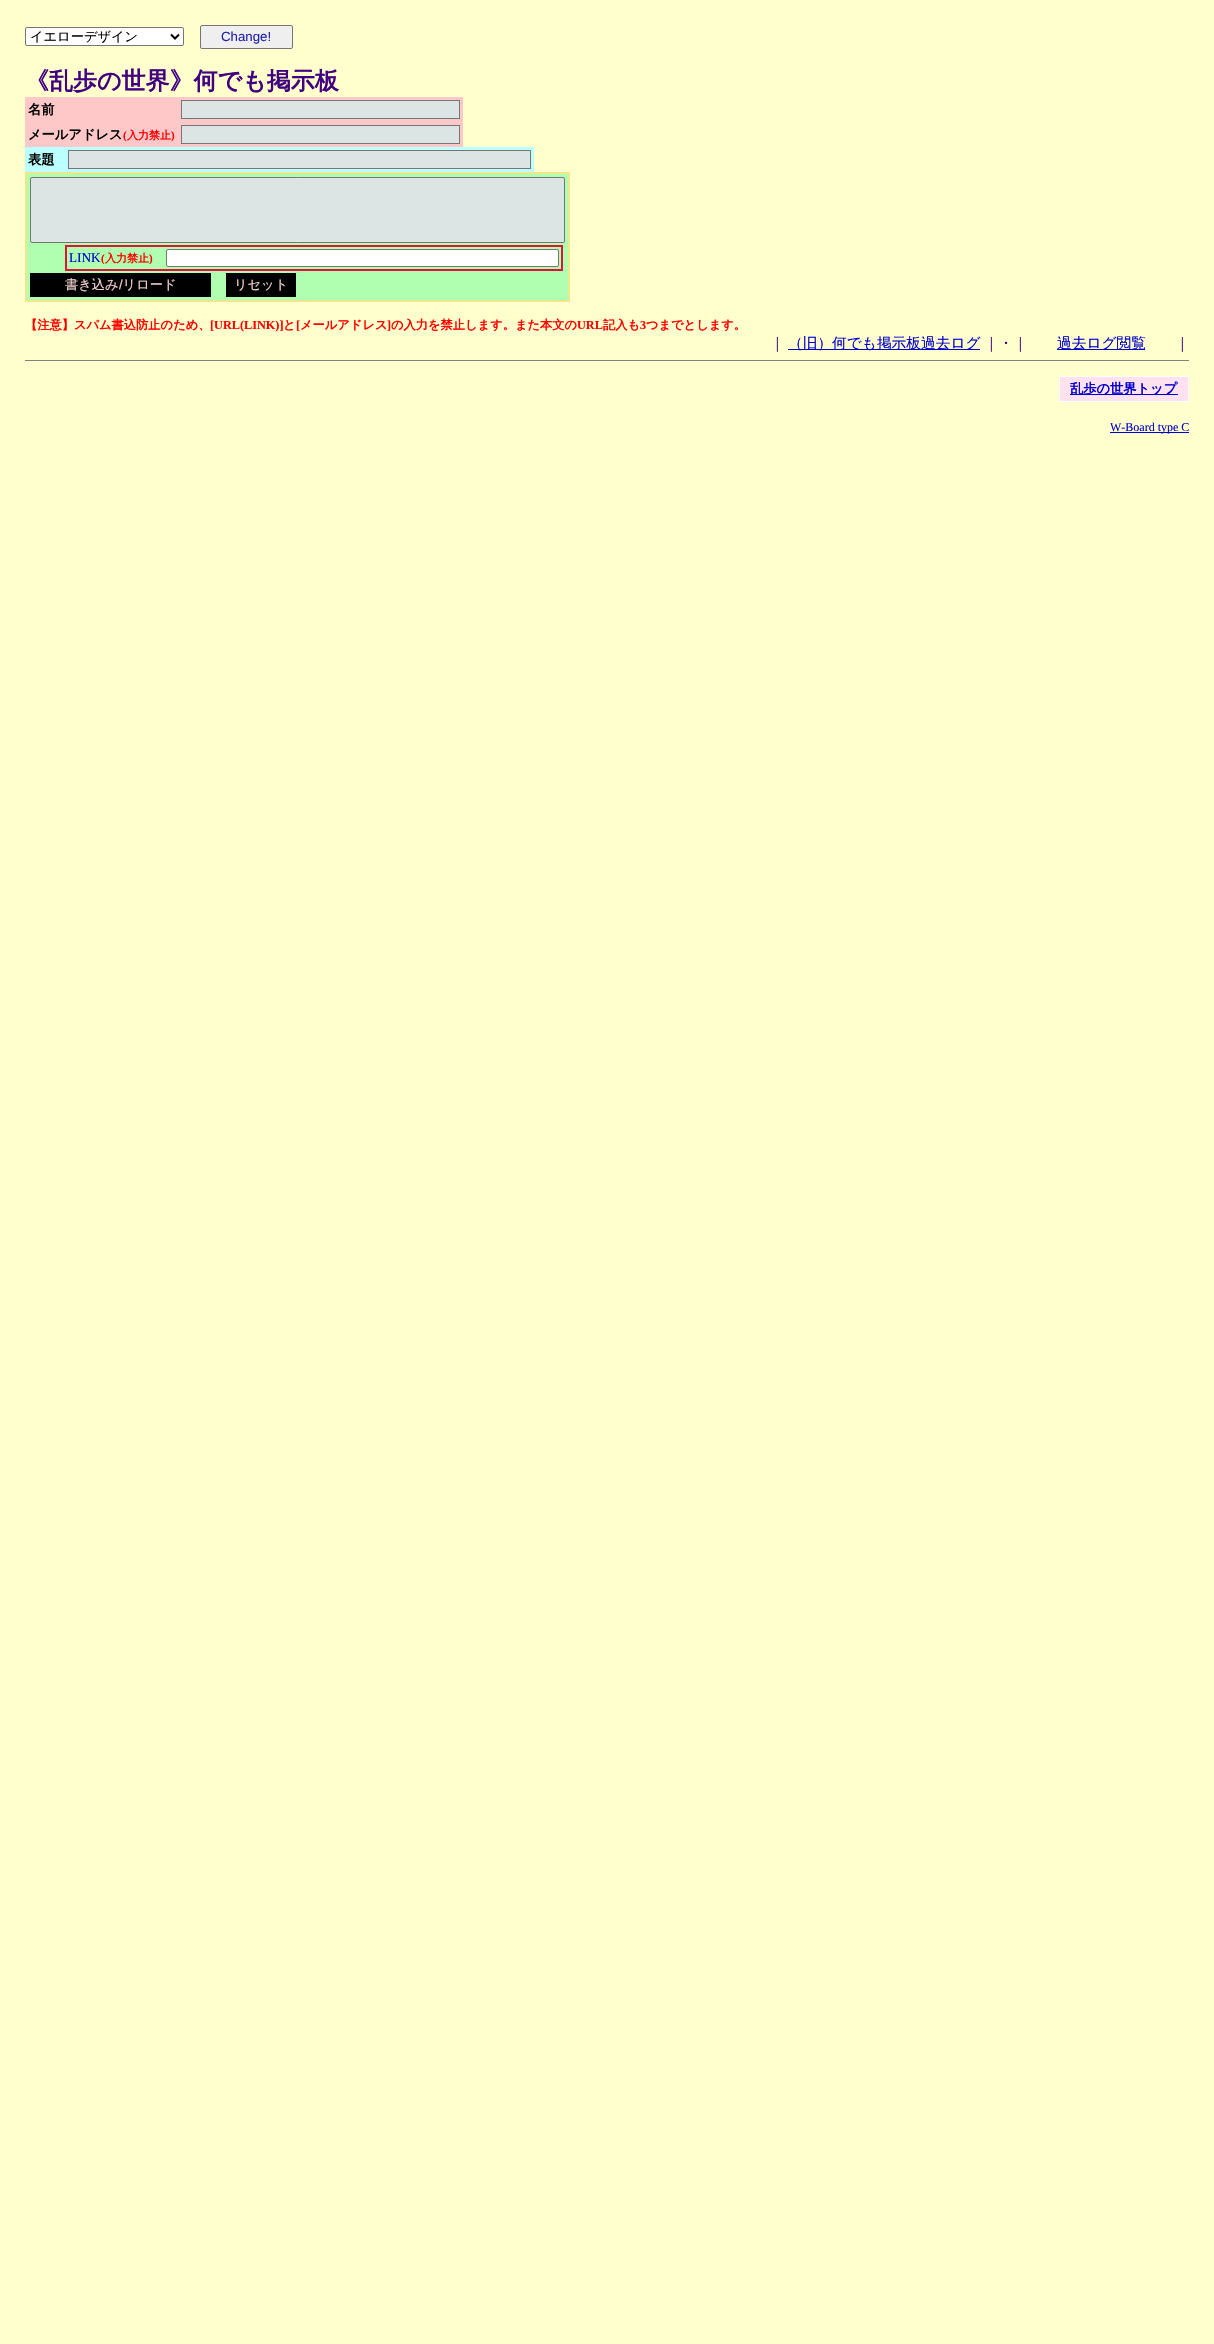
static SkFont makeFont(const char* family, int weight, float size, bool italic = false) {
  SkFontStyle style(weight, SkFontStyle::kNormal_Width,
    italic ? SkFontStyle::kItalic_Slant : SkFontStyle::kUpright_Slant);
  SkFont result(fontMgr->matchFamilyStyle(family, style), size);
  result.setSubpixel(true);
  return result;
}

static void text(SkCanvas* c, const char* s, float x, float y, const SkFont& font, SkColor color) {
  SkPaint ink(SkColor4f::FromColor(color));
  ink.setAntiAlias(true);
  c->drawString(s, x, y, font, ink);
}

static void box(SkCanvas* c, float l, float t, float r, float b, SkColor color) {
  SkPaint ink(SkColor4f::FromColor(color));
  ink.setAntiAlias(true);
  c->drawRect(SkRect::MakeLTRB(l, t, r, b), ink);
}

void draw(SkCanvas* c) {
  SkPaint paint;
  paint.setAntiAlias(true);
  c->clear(0xffffffce);
  paint.setColor(0xffffffff);
  c->drawRoundRect(SkRect::MakeLTRB(25.5f, 27.5f, 183.5f, 45.5f), 1.5f, 1.5f, paint);
  paint.setStyle(SkPaint::kStroke_Style);
  paint.setStrokeWidth(1);
  paint.setColor(0xff767676);
  c->drawRoundRect(SkRect::MakeLTRB(25.5f, 27.5f, 183.5f, 45.5f), 1.5f, 1.5f, paint);
  paint.setStrokeWidth(2);
  paint.setColor(0xff000000);
  c->drawPath(SkPathBuilder().moveTo(171, 34.5f).lineTo(175, 38.5f).lineTo(179, 34.5f).detach(), paint);
  SkFont face1 = makeFont("WenQuanYi Zen Hei", 500, 13.25f);
  text(c, "イエローデザイン", 30, 41, face1, 0xff000000);
  paint.setStyle(SkPaint::kFill_Style);
  paint.setColor(0xffefefef);
  c->drawRoundRect(SkRect::MakeLTRB(200.5f, 25.5f, 292.5f, 48.5f), 1.5f, 1.5f, paint);
  paint.setStyle(SkPaint::kStroke_Style);
  paint.setStrokeWidth(1);
  paint.setColor(0xff767676);
  c->drawRoundRect(SkRect::MakeLTRB(200.5f, 25.5f, 292.5f, 48.5f), 1.5f, 1.5f, paint);
  SkFont face2 = makeFont("Liberation Sans", 400, 13.25f);
  text(c, "Change!", 221, 41, face2, 0xff2222aa);
  SkFont face3 = makeFont("WenQuanYi Zen Hei", 700, 24);
  text(c, "《乱歩の世界》何でも掲示板", 25, 89, face3, 0xff400080);
  box(c, 25, 97, 463, 122, 0xffffc8c8);
  SkFont face4 = makeFont("WenQuanYi Zen Hei", 700, 13.25f);
  text(c, "名前", 28, 114, face4, 0xff000000);
  paint.setStyle(SkPaint::kFill_Style);
  paint.setColor(0xffdce4e4);
  c->drawRect(SkRect::MakeLTRB(181.5f, 100.5f, 459.5f, 118.5f), paint);
  paint.setStyle(SkPaint::kStroke_Style);
  paint.setColor(0xff767676);
  c->drawRect(SkRect::MakeLTRB(181.5f, 100.5f, 459.5f, 118.5f), paint);
  box(c, 25, 122, 463, 147, 0xffffc8c8);
  text(c, "メールアドレス", 28, 139, face4, 0xff000000);
  SkFont face5 = makeFont("Liberation Serif", 700, 11);
  text(c, "(", 123, 139, face5, 0xffff0000);
  SkFont face6 = makeFont("WenQuanYi Zen Hei", 700, 11);
  text(c, "入力禁止", 127, 139, face6, 0xffff0000);
  text(c, ")", 171, 139, face5, 0xffff0000);
  paint.setStyle(SkPaint::kFill_Style);
  paint.setColor(0xffdce4e4);
  c->drawRect(SkRect::MakeLTRB(181.5f, 125.5f, 459.5f, 143.5f), paint);
  paint.setStyle(SkPaint::kStroke_Style);
  paint.setColor(0xff767676);
  c->drawRect(SkRect::MakeLTRB(181.5f, 125.5f, 459.5f, 143.5f), paint);
  box(c, 25, 147, 534, 172, 0xffbbffff);
  text(c, "表題", 28, 164, face4, 0xff000000);
  paint.setStyle(SkPaint::kFill_Style);
  paint.setColor(0xffdce4e4);
  c->drawRect(SkRect::MakeLTRB(68.5f, 150.5f, 530.5f, 168.5f), paint);
  paint.setStyle(SkPaint::kStroke_Style);
  paint.setColor(0xff767676);
  c->drawRect(SkRect::MakeLTRB(68.5f, 150.5f, 530.5f, 168.5f), paint);
  box(c, 25, 172, 570, 302, 0xfff0e68c);
  box(c, 27, 174, 568, 300, 0xffb0ffb0);
  paint.setStyle(SkPaint::kFill_Style);
  paint.setColor(0xffdce4e4);
  c->drawRoundRect(SkRect::MakeLTRB(30.5f, 177.5f, 564.5f, 242.5f), 1.5f, 1.5f, paint);
  paint.setStyle(SkPaint::kStroke_Style);
  paint.setColor(0xff767676);
  c->drawRoundRect(SkRect::MakeLTRB(30.5f, 177.5f, 564.5f, 242.5f), 1.5f, 1.5f, paint);
  box(c, 65, 245, 563, 271, 0xffdc143c);
  box(c, 67, 247, 561, 269, 0xffb0ffb0);
  SkFont face7 = makeFont("Liberation Serif", 400, 13.25f);
  text(c, "LINK", 69, 262, face7, 0xff0000cc);
  text(c, "(", 101, 262, face5, 0xffff0000);
  text(c, "入力禁止", 105, 262, face6, 0xffff0000);
  text(c, ")", 149, 262, face5, 0xffff0000);
  paint.setStyle(SkPaint::kFill_Style);
  paint.setColor(0xffffffff);
  c->drawRoundRect(SkRect::MakeLTRB(166.5f, 249.5f, 558.5f, 266.5f), 1.5f, 1.5f, paint);
  paint.setStyle(SkPaint::kStroke_Style);
  paint.setColor(0xff767676);
  c->drawRoundRect(SkRect::MakeLTRB(166.5f, 249.5f, 558.5f, 266.5f), 1.5f, 1.5f, paint);
  box(c, 30, 273, 211, 297, 0xff000000);
  text(c, "書き込み リロード", 65, 289, face1, 0xfff6d2d2);
  text(c, "/", 119, 289, face2, 0xfff6d2d2);
  box(c, 226, 273, 296, 297, 0xff000000);
  text(c, "リセット", 234, 289, face1, 0xfff6d2d2);
  SkFont face8 = makeFont("WenQuanYi Zen Hei", 700, 12.25f);
  text(c, "【注意】スパム書込防止のため、", 25, 329, face8, 0xffff0000);
  SkFont face9 = makeFont("Liberation Serif", 700, 12.25f);
  text(c, "[URL(LINK)]", 210, 329, face9, 0xffff0000);
  text(c, "と", 283, 329, face8, 0xffff0000);
  text(c, "[", 296, 329, face9, 0xffff0000);
  text(c, "メールアドレス", 300, 329, face8, 0xffff0000);
  text(c, "]", 387, 329, face9, 0xffff0000);
  text(c, "の入力を禁止します。また本文の", 391, 329, face8, 0xffff0000);
  text(c, "URL", 577, 329, face9, 0xffff0000);
  text(c, "記入も", 603, 329, face8, 0xffff0000);
  text(c, "3", 640, 329, face9, 0xffff0000);
  text(c, "つまでとします。", 646, 329, face8, 0xffff0000);
  SkFont face10 = makeFont("WenQuanYi Zen Hei", 500, 14.7f);
  text(c, "｜", 770, 348, face10, 0xff400080);
  box(c, 788, 349, 980, 350, 0xff0000cc);
  text(c, "（旧）何でも掲示板過去ログ", 788, 348, face10, 0xff0000cc);
  text(c, "｜・｜", 984, 348, face10, 0xff400080);
  box(c, 1057, 349, 1145, 350, 0xff0000cc);
  text(c, "過去ログ閲覧", 1057, 348, face10, 0xff0000cc);
  text(c, "｜", 1175, 348, face10, 0xff400080);
  box(c, 25, 360, 1189, 361, 0xff808080);
  box(c, 1059, 376, 1189, 402, 0xffffffff);
  box(c, 1060, 377, 1188, 401, 0xffffe1f0);
  box(c, 1070, 394, 1178, 395, 0xff0000cc);
  text(c, "乱歩の世界トップ", 1070, 393, face4, 0xff0000cc);
  box(c, 1110, 432, 1189, 433, 0xff0000cc);
  SkFont face11 = makeFont("Liberation Serif", 400, 12);
  text(c, "W-Board type C", 1110, 431, face11, 0xff0000cc);
}
